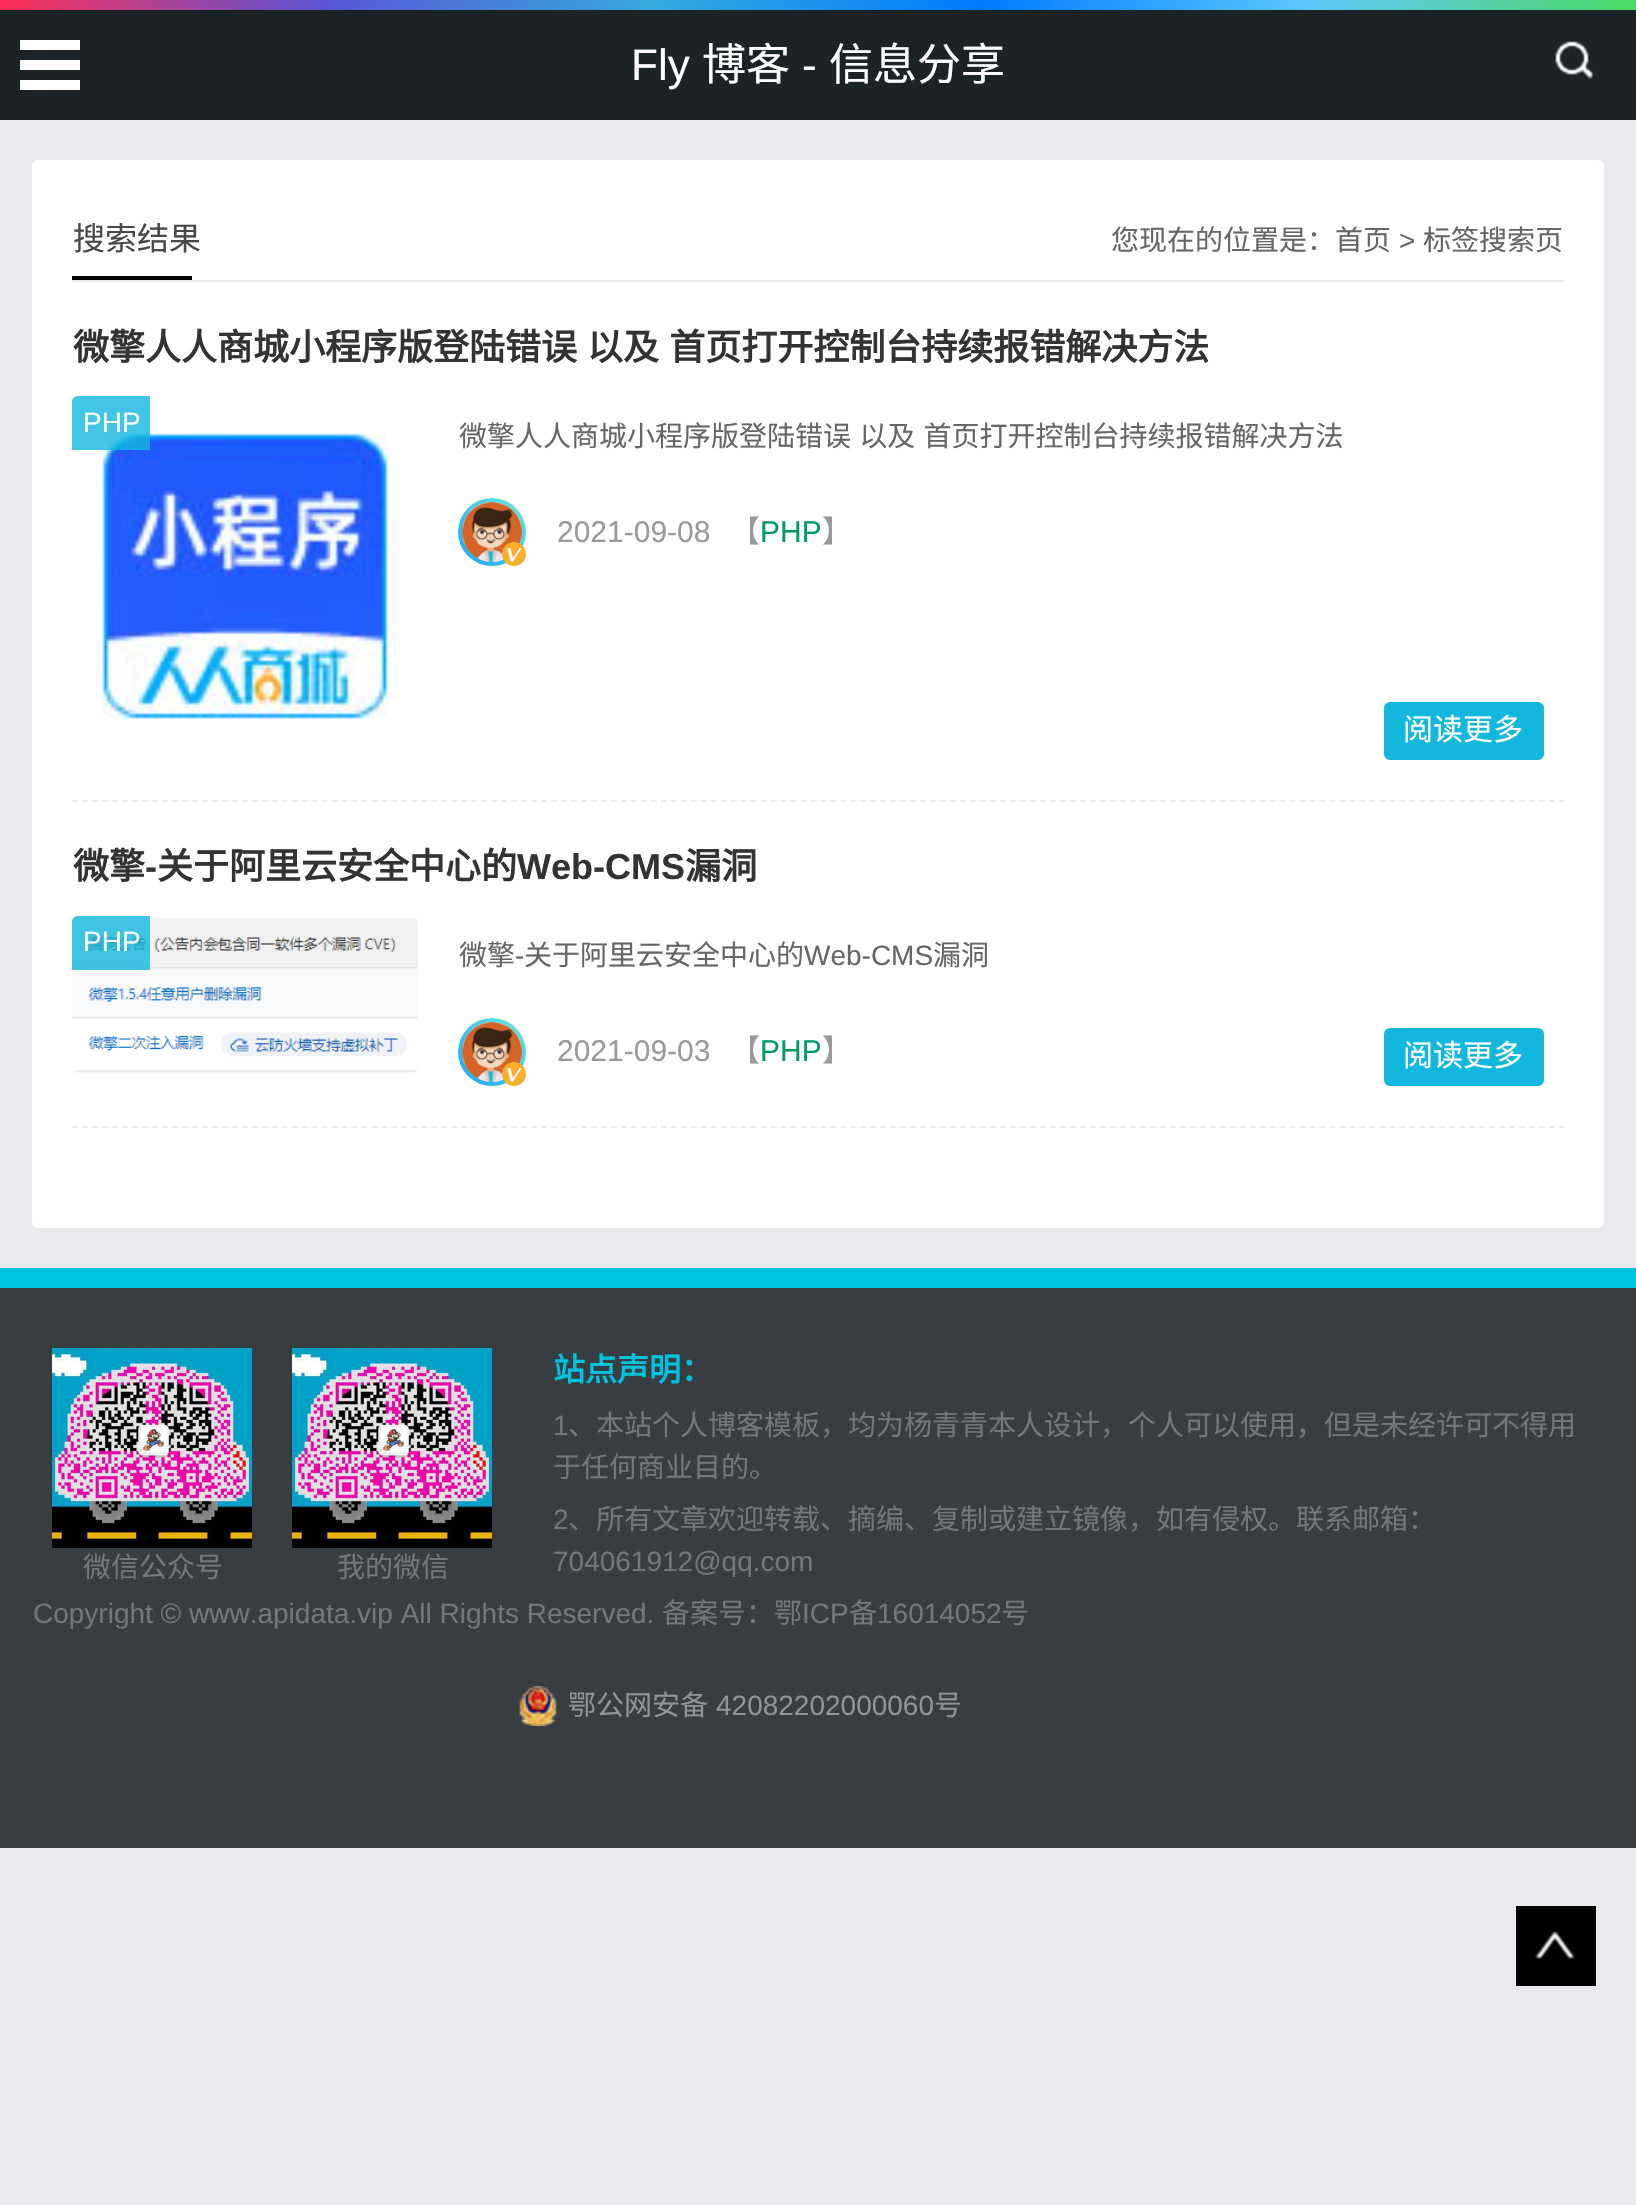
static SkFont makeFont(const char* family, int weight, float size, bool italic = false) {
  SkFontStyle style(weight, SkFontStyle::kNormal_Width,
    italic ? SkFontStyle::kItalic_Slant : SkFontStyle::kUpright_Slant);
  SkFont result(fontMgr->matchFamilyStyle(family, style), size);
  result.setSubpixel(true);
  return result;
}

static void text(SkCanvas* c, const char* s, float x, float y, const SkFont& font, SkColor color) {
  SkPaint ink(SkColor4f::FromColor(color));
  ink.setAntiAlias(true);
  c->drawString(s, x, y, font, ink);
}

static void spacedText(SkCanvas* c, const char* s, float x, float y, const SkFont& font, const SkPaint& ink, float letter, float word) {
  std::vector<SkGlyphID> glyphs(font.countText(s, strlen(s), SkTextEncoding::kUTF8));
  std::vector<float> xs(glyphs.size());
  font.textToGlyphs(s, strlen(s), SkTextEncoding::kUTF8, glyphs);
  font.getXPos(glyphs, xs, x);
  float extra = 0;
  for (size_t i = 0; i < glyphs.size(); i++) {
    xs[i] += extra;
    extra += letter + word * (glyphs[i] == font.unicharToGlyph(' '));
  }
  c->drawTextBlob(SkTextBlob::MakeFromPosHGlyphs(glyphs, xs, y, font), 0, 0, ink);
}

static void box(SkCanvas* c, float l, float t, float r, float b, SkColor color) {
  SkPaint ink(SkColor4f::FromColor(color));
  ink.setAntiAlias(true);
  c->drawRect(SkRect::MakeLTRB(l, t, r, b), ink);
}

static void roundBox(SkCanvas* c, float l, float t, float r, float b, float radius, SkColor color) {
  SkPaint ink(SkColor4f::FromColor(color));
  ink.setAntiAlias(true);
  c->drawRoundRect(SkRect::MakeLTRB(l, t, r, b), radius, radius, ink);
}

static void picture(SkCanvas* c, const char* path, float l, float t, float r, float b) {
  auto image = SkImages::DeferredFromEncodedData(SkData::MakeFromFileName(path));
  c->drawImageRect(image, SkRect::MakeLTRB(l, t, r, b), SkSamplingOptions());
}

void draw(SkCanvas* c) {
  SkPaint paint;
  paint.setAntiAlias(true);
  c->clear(0xffe9eaed);
  box(c, 0, 10, 1636, 120, 0xff1c2327);
  {
    const SkColor colors[] = {0xff4cd964, 0xff5ac8fa, 0xff007aff, 0xff34aadc, 0xff5856d6, 0xffff2d55};
    const float stops[] = {0, 0.2f, 0.4f, 0.6f, 0.8f, 1};
    const SkPoint ends[] = {{1636, 5}, {0, 5}};
    paint.setShader(SkGradientShader::MakeLinear(ends, colors, stops, 6, SkTileMode::kClamp));
    paint.setAlpha(255);
  }
  c->drawRect(SkRect::MakeLTRB(0, 0, 1636, 10), paint);
  box(c, 20, 60, 80, 70, 0xffffffff);
  box(c, 20, 40, 80, 50, 0xffffffff);
  box(c, 20, 80, 80, 90, 0xffffffff);
  SkFont face1 = makeFont("Liberation Sans", 400, 44);
  text(c, "Fly", 631, 80, face1, 0xffffffff);
  SkFont face2 = makeFont("Noto Sans CJK SC", 400, 44);
  text(c, "博客", 702, 80, face2, 0xffffffff);
  text(c, "-", 802, 80, face1, 0xffffffff);
  text(c, "信息分享", 829, 80, face2, 0xffffffff);
  picture(c, "img_01.png", 1555, 41, 1595, 79);
  roundBox(c, 32, 160, 1604, 1228, 6, 0xffffffff);
  box(c, 72, 280, 1564, 282, 0xffeeeeee);
  SkFont face3 = makeFont("Noto Sans CJK SC", 400, 32);
  text(c, "搜索结果", 73, 250, face3, 0xff484848);
  SkFont face4 = makeFont("Noto Sans CJK SC", 400, 28);
  text(c, "您现在的位置是：首页", 1111, 250, face4, 0xff666666);
  SkFont face5 = makeFont("Liberation Sans", 400, 28);
  text(c, ">", 1399, 250, face5, 0xff666666);
  text(c, "标签搜索页", 1423, 250, face4, 0xff666666);
  box(c, 72, 276, 192, 280, 0xff000000);
  paint.setStyle(SkPaint::kStroke_Style);
  paint.setStrokeWidth(2);
  paint.setShader(nullptr);
  paint.setColor(0xffeeeeee);
  paint.setPathEffect(SkDashPathEffect::Make({{6, 3.98f}}, 0));
  c->drawPath(SkPathBuilder().moveTo(72, 801).lineTo(1564, 801).detach(), paint);
  paint.setPathEffect(nullptr);
  SkFont face6 = makeFont("Noto Sans CJK SC", 700, 36);
  paint.setStyle(SkPaint::kFill_Style);
  paint.setColor(0xff333333);
  spacedText(c, "微擎人人商城小程序版登陆错误 以及 首页打开控制台持续报错解决方法", 73, 360, face6, paint, 0, 2);
  picture(c, "img_02.png", 102, 433, 388, 719);
  paint.setColor(0xcc12b6dd);
  c->drawPath(SkPathBuilder().moveTo(78, 396).lineTo(150, 396).lineTo(150, 450).lineTo(72, 450).lineTo(72, 402).cubicTo(72, 398.5f, 74.5f, 396, 78, 396).close().detach(), paint);
  text(c, "PHP", 83, 432, face5, 0xffffffff);
  paint.setColor(0xff666666);
  spacedText(c, "微擎人人商城小程序版登陆错误 以及 首页打开控制台持续报错解决方法", 459, 446, face4, paint, 0, 2);
  {
    const SkColor colors[] = {0xff1aa3ff, 0xff6aecd6};
    const float stops[] = {0, 1};
    const SkPoint ends[] = {{458, 566}, {526, 498}};
    paint.setShader(SkGradientShader::MakeLinear(ends, colors, stops, 2, SkTileMode::kClamp));
    paint.setAlpha(255);
  }
  c->drawCircle(492, 532, 34, paint);
  picture(c, "img_03.png", 462, 502, 522, 562);
  picture(c, "img_04.png", 502, 542, 526, 566);
  SkFont face7 = makeFont("Liberation Sans", 400, 30);
  text(c, "2021-09-08", 557, 542, face7, 0xff999999);
  SkFont face8 = makeFont("Noto Sans CJK SC", 400, 30);
  text(c, "【", 730, 542, face8, 0xff999999);
  text(c, "PHP", 760, 542, face7, 0xff009966);
  text(c, "】", 822, 542, face8, 0xff999999);
  roundBox(c, 1384, 702, 1544, 760, 6, 0xff12b7de);
  text(c, "阅读更多", 1403, 740, face8, 0xffffffff);
  paint.setStyle(SkPaint::kStroke_Style);
  paint.setShader(nullptr);
  paint.setColor(0xffeeeeee);
  paint.setPathEffect(SkDashPathEffect::Make({{6, 3.98f}}, 0));
  c->drawPath(SkPathBuilder().moveTo(72, 1127).lineTo(1564, 1127).detach(), paint);
  paint.setPathEffect(nullptr);
  text(c, "微擎", 73, 879, face6, 0xff333333);
  SkFont face9 = makeFont("Liberation Sans", 700, 36);
  text(c, "-", 145, 879, face9, 0xff333333);
  text(c, "关于阿里云安全中心的", 157, 879, face6, 0xff333333);
  text(c, "Web-CMS", 517, 879, face9, 0xff333333);
  text(c, "漏洞", 685, 879, face6, 0xff333333);
  picture(c, "img_05.png", 72, 918, 418, 1074);
  paint.setStyle(SkPaint::kFill_Style);
  paint.setColor(0xcc12b6dd);
  c->drawPath(SkPathBuilder().moveTo(78, 916).lineTo(150, 916).lineTo(150, 970).lineTo(72, 970).lineTo(72, 922).cubicTo(72, 918.5f, 74.5f, 916, 78, 916).close().detach(), paint);
  text(c, "PHP", 83, 951, face5, 0xffffffff);
  text(c, "微擎", 459, 965, face4, 0xff666666);
  text(c, "-", 515, 965, face5, 0xff666666);
  text(c, "关于阿里云安全中心的", 524, 965, face4, 0xff666666);
  text(c, "Web-CMS", 804, 965, face5, 0xff666666);
  text(c, "漏洞", 933, 965, face4, 0xff666666);
  {
    const SkColor colors[] = {0xff1aa3ff, 0xff6aecd6};
    const float stops[] = {0, 1};
    const SkPoint ends[] = {{458, 1086}, {526, 1018}};
    paint.setShader(SkGradientShader::MakeLinear(ends, colors, stops, 2, SkTileMode::kClamp));
    paint.setAlpha(255);
  }
  c->drawCircle(492, 1052, 34, paint);
  picture(c, "img_06.png", 462, 1022, 522, 1082);
  picture(c, "img_04.png", 502, 1062, 526, 1086);
  text(c, "2021-09-03", 557, 1061, face7, 0xff999999);
  text(c, "【", 730, 1061, face8, 0xff999999);
  text(c, "PHP", 760, 1061, face7, 0xff009966);
  text(c, "】", 822, 1061, face8, 0xff999999);
  roundBox(c, 1384, 1028, 1544, 1086, 6, 0xff12b7de);
  text(c, "阅读更多", 1403, 1066, face8, 0xffffffff);
  box(c, 0, 1288, 1636, 1848, 0xff373d41);
  box(c, 0, 1268, 1636, 1288, 0xff00c1de);
  SkFont face10 = makeFont("Noto Sans CJK SC", 700, 32);
  text(c, "站点声明：", 553, 1381, face10, 0xff00c1de);
  text(c, "1", 553, 1435, face5, 0xff73777a);
  text(c, "、本站个人博客模板，均为杨青青本人设计，个人可以使用，但是未经许可不得用", 568, 1435, face4, 0xff73777a);
  text(c, "于任何商业目的。", 553, 1477, face4, 0xff73777a);
  text(c, "2", 553, 1529, face5, 0xff73777a);
  text(c, "、所有文章欢迎转载、摘编、复制或建立镜像，如有侵权。联系邮箱：", 568, 1529, face4, 0xff73777a);
  text(c, "704061912@qq.com", 553, 1571, face5, 0xff73777a);
  text(c, "Copyright © www.apidata.vip All Rights Reserved.", 33, 1623, face5, 0xff73777a);
  text(c, "备案号：鄂", 662, 1623, face4, 0xff73777a);
  text(c, "ICP", 802, 1623, face5, 0xff73777a);
  text(c, "备", 849, 1623, face4, 0xff73777a);
  text(c, "16014052", 877, 1623, face5, 0xff73777a);
  text(c, "号", 1001, 1623, face4, 0xff73777a);
  picture(c, "img_07.png", 519, 1686, 557, 1726);
  text(c, "鄂公网安备", 568, 1715, face4, 0xff939393);
  text(c, "42082202000060", 716, 1715, face5, 0xff939393);
  text(c, "号", 934, 1715, face4, 0xff939393);
  picture(c, "img_08.png", 52, 1348, 252, 1548);
  text(c, "微信公众号", 83, 1577, face4, 0xff73777a);
  picture(c, "img_08.png", 292, 1348, 492, 1548);
  text(c, "我的微信", 337, 1577, face4, 0xff73777a);
  box(c, 1516, 1906, 1596, 1986, 0xff000000);
  picture(c, "img_09.png", 1535, 1931, 1575, 1959);
}
